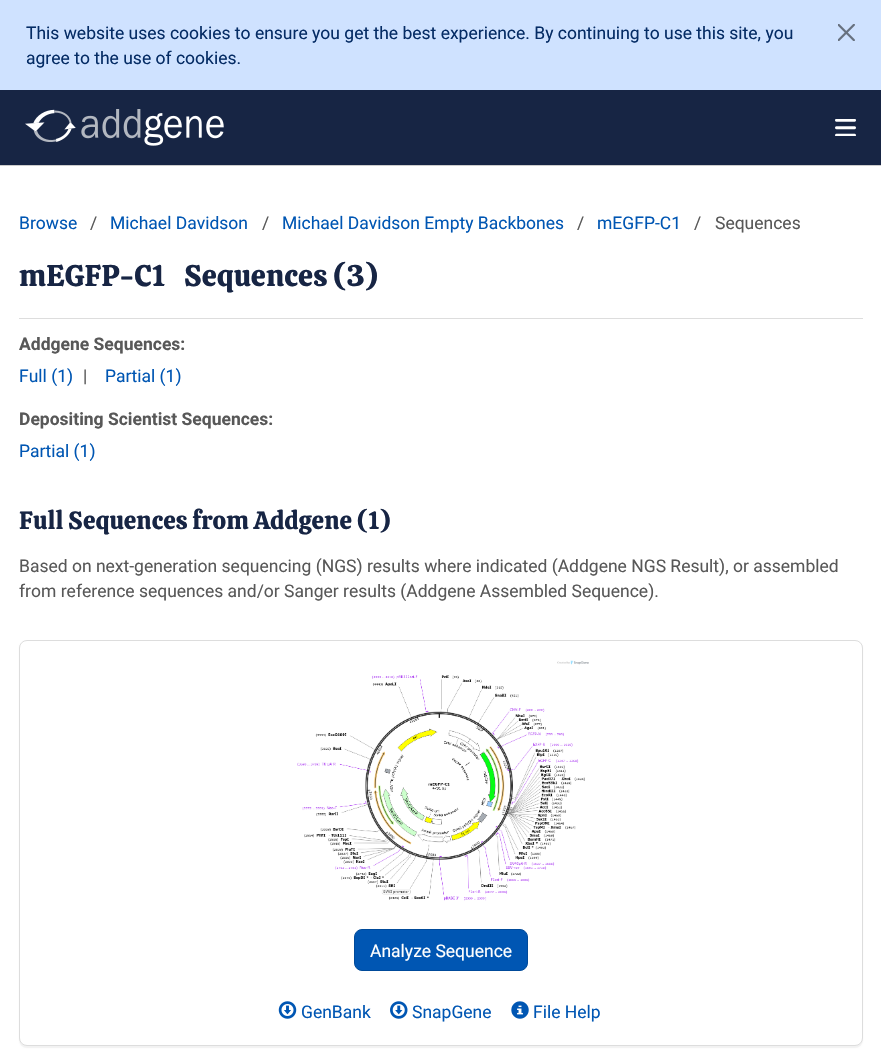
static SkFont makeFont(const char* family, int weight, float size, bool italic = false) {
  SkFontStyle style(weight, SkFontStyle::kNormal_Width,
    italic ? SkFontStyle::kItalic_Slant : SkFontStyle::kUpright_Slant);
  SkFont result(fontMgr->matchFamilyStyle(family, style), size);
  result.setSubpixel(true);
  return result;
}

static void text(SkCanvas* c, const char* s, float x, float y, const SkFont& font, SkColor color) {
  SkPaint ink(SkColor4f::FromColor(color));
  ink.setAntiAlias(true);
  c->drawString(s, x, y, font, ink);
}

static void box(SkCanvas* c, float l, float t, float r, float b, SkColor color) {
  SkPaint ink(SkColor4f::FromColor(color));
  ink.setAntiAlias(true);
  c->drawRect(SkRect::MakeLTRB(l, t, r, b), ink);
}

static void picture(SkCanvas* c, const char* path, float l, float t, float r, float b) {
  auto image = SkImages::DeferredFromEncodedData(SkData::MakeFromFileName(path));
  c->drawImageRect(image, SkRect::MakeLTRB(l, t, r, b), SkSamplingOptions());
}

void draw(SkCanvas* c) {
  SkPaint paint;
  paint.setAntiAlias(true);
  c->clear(0xffffffff);
  box(c, 0, 0, 881, 90, 0xffcfe2ff);
  SkFont face1 = makeFont("Roboto", 400, 17.5f);
  text(c, "This website uses cookies to ensure you get the best experience. By continuing to use this site, you", 26, 39, face1, 0xff052c65);
  picture(c, "img_01.png", 838, 24, 855, 41);
  text(c, "agree to the use of cookies.", 26, 64, face1, 0xff052c65);
  box(c, 0, 165, 881, 166, 0xffcccccc);
  box(c, 0, 90, 881, 165, 0xff172544);
  picture(c, "img_02.png", 25, 109, 224, 146);
  picture(c, "img_03.png", 835, 119, 856, 136);
  text(c, "Browse", 19, 229, face1, 0xff0056b3);
  text(c, "/", 90, 229, face1, 0xff585858);
  text(c, "Michael Davidson", 110, 229, face1, 0xff0056b3);
  text(c, "/", 262, 229, face1, 0xff585858);
  text(c, "Michael Davidson Empty Backbones", 282, 229, face1, 0xff0056b3);
  text(c, "/", 577, 229, face1, 0xff585858);
  text(c, "mEGFP-C1", 597, 229, face1, 0xff0056b3);
  text(c, "/", 694, 229, face1, 0xff585858);
  text(c, "Sequences", 715, 229, face1, 0xff585858);
  SkFont face2 = makeFont("Calistoga", 400, 30);
  text(c, "mEGFP-C1", 19, 286, face2, 0xff172544);
  text(c, "Sequences (3)", 184, 286, face2, 0xff172544);
  box(c, 19, 318, 863, 319, 0xffdddddd);
  SkFont face3 = makeFont("Roboto", 700, 17.5f);
  text(c, "Addgene Sequences:", 19, 350, face3, 0xff585858);
  text(c, "Full (1)", 19, 382, face1, 0xff0056b3);
  text(c, "|", 83, 382, face1, 0xff585858);
  text(c, "Partial (1)", 105, 382, face1, 0xff0056b3);
  text(c, "Depositing Scientist Sequences:", 19, 425, face3, 0xff585858);
  text(c, "Partial (1)", 19, 457, face1, 0xff0056b3);
  SkFont face4 = makeFont("Calistoga", 400, 25);
  text(c, "Full Sequences from Addgene (1)", 19, 529, face4, 0xff172544);
  text(c, "Based on next-generation sequencing (NGS) results where indicated (Addgene NGS Result), or assembled", 19, 572, face1, 0xff585858);
  text(c, "from reference sequences and/or Sanger results (Addgene Assembled Sequence).", 19, 597, face1, 0xff585858);
  paint.setColor(0x0d000000);
  paint.setMaskFilter(SkMaskFilter::MakeBlur(kNormal_SkBlurStyle, 0.5f));
  c->drawRoundRect(SkRect::MakeLTRB(19, 641, 863, 1048), 8, 8, paint);
  paint.setMaskFilter(nullptr);
  paint.setColor(0xffffffff);
  c->drawRoundRect(SkRect::MakeLTRB(19.5f, 640.5f, 862.5f, 1045.5f), 7.5f, 7.5f, paint);
  paint.setStyle(SkPaint::kStroke_Style);
  paint.setStrokeWidth(1);
  paint.setColor(0xffdddddd);
  c->drawRoundRect(SkRect::MakeLTRB(19.5f, 640.5f, 862.5f, 1045.5f), 7.5f, 7.5f, paint);
  picture(c, "img_04.png", 297, 660, 589, 901);
  paint.setStyle(SkPaint::kFill_Style);
  paint.setColor(0xff0056b3);
  c->drawRoundRect(SkRect::MakeLTRB(354.5f, 929.5f, 527.5f, 970.5f), 7.5f, 7.5f, paint);
  paint.setStyle(SkPaint::kStroke_Style);
  paint.setColor(0xff004a9a);
  c->drawRoundRect(SkRect::MakeLTRB(354.5f, 929.5f, 527.5f, 970.5f), 7.5f, 7.5f, paint);
  text(c, "Analyze Sequence", 370, 957, face1, 0xffffffff);
  picture(c, "img_05.png", 278, 1001, 297, 1019);
  text(c, "GenBank", 301, 1018, face1, 0xff0056b3);
  picture(c, "img_06.png", 390, 1001, 408, 1019);
  text(c, "SnapGene", 412, 1018, face1, 0xff0056b3);
  picture(c, "img_07.png", 511, 1001, 529, 1019);
  text(c, "File Help", 533, 1018, face1, 0xff0056b3);
}
